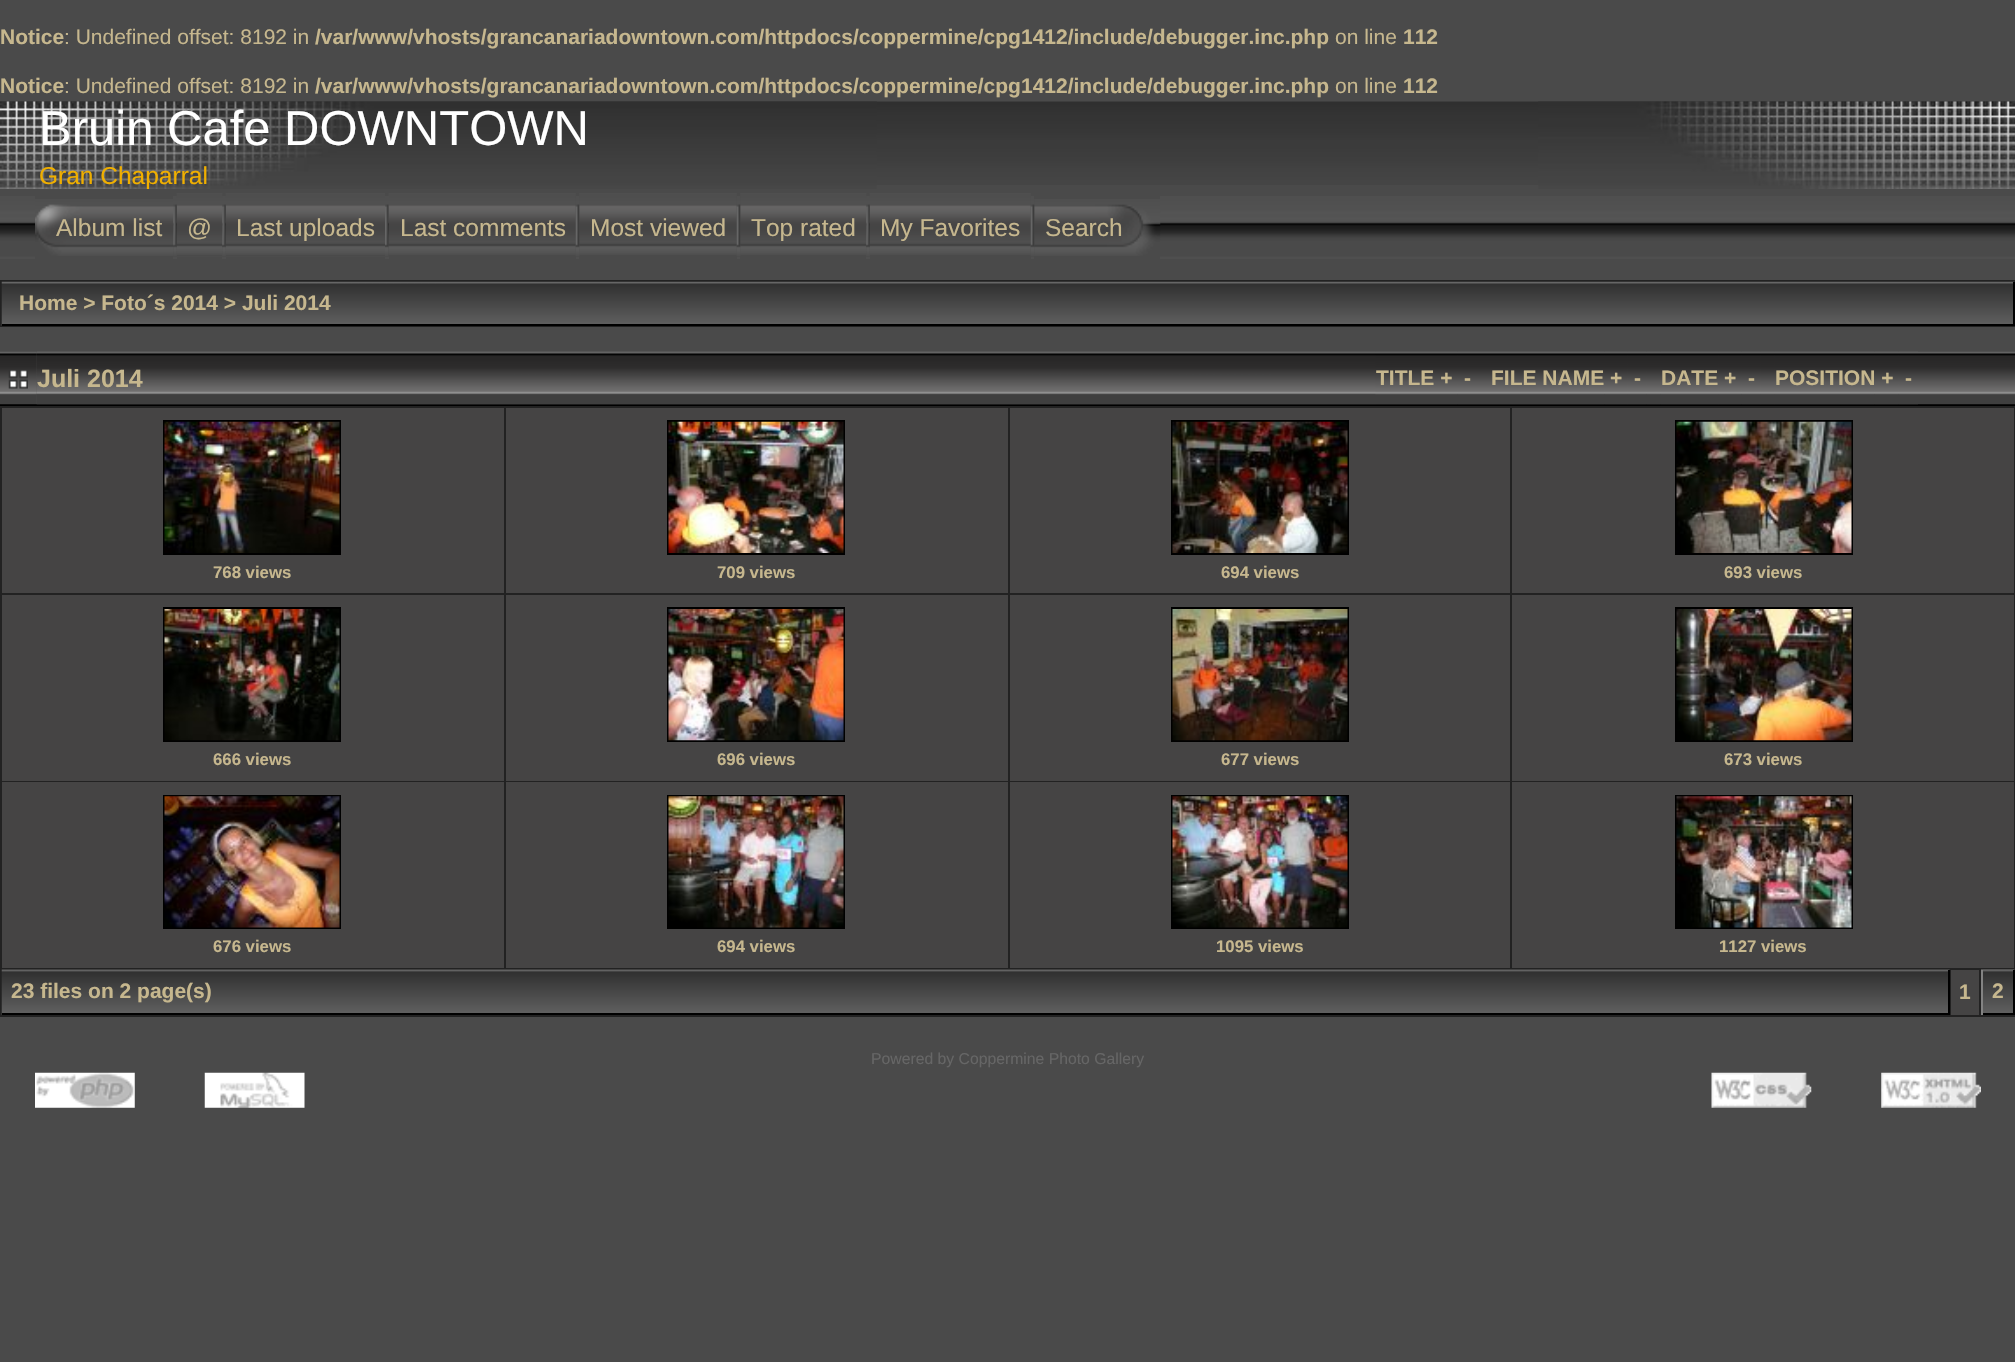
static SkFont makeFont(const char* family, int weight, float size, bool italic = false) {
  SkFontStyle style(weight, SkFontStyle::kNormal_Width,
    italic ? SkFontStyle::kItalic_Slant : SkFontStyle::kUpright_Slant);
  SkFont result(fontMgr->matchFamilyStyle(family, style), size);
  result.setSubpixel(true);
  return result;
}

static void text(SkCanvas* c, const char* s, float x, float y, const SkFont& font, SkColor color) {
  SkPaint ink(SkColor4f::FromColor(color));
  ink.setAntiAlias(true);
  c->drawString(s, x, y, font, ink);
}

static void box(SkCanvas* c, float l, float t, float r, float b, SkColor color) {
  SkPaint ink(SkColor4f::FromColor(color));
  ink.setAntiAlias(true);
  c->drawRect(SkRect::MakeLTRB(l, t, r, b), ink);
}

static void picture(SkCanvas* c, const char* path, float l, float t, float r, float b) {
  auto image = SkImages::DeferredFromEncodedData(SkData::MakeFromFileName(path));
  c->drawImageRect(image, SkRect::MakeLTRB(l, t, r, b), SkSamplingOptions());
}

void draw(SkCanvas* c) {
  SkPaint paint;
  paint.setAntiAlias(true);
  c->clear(0xff4a4a4a);
  SkFont face1 = makeFont("Liberation Sans", 700, 21);
  text(c, "Notice", 0, 44, face1, 0xffc6b78e);
  SkFont face2 = makeFont("Liberation Sans", 400, 21);
  text(c, ": Undefined offset: 8192 in", 64, 44, face2, 0xffc6b78e);
  text(c, "/var/www/vhosts/grancanariadowntown.com/httpdocs/coppermine/cpg1412/include/debugger.inc.php", 315, 44, face1, 0xffc6b78e);
  text(c, "on line", 1335, 44, face2, 0xffc6b78e);
  text(c, "112", 1403, 44, face1, 0xffc6b78e);
  text(c, "Notice", 0, 93, face1, 0xffc6b78e);
  text(c, ": Undefined offset: 8192 in", 64, 93, face2, 0xffc6b78e);
  text(c, "/var/www/vhosts/grancanariadowntown.com/httpdocs/coppermine/cpg1412/include/debugger.inc.php", 315, 93, face1, 0xffc6b78e);
  text(c, "on line", 1335, 93, face2, 0xffc6b78e);
  text(c, "112", 1403, 93, face1, 0xffc6b78e);
  picture(c, "img_01.png", 0, 101, 2015, 185);
  picture(c, "img_02.png", 0, 101, 877, 189);
  picture(c, "img_03.png", 1538, 101, 2015, 189);
  SkFont face3 = makeFont("Liberation Sans", 400, 49);
  text(c, "Bruin Cafe DOWNTOWN", 39, 145, face3, 0xffffffff);
  SkFont face4 = makeFont("Liberation Sans", 400, 24.5f);
  text(c, "Gran Chaparral", 39, 184, face4, 0xfff0af00);
  picture(c, "img_04.png", 0, 196, 2015, 259);
  box(c, 35, 196, 173, 259, 0xff4a4a4a);
  picture(c, "img_05.png", 35, 199, 174, 256);
  text(c, "Album list", 56, 236, face4, 0xffc6b78e);
  picture(c, "img_07.png", 176, 193, 223, 255);
  picture(c, "img_06.png", 173, 204, 177, 256);
  box(c, 177, 257, 222, 259, 0xff4a4a4a);
  text(c, "@", 187, 236, face4, 0xffc6b78e);
  picture(c, "img_09.png", 225, 193, 385, 255);
  picture(c, "img_08.png", 222, 204, 226, 256);
  box(c, 226, 257, 385, 259, 0xff4a4a4a);
  text(c, "Last uploads", 236, 236, face4, 0xffc6b78e);
  box(c, 389, 196, 576, 259, 0xff4a4a4a);
  picture(c, "img_11.png", 388, 193, 576, 255);
  picture(c, "img_10.png", 385, 204, 389, 256);
  text(c, "Last comments", 400, 236, face4, 0xffc6b78e);
  box(c, 579, 196, 737, 259, 0xff4a4a4a);
  picture(c, "img_13.png", 579, 193, 737, 255);
  picture(c, "img_12.png", 575, 204, 580, 256);
  text(c, "Most viewed", 590, 236, face4, 0xffc6b78e);
  box(c, 740, 196, 866, 259, 0xff4a4a4a);
  picture(c, "img_14.png", 740, 193, 867, 255);
  picture(c, "img_12.png", 736, 204, 741, 256);
  text(c, "Top rated", 751, 236, face4, 0xffc6b78e);
  box(c, 870, 196, 1031, 259, 0xff4a4a4a);
  picture(c, "img_15.png", 869, 193, 1031, 255);
  picture(c, "img_08.png", 866, 204, 870, 256);
  text(c, "My Favorites", 880, 236, face4, 0xffc6b78e);
  box(c, 1034, 196, 1160, 259, 0xff4a4a4a);
  picture(c, "img_17.png", 1034, 199, 1161, 256);
  picture(c, "img_16.png", 1030, 204, 1035, 256);
  text(c, "Search", 1045, 236, face4, 0xffc6b78e);
  box(c, 0, 280, 2015, 327, 0xff222222);
  picture(c, "img_18.png", 1, 281, 2015, 326);
  box(c, 2013, 282, 2015, 326, 0xff000000);
  box(c, 2, 324, 2014, 326, 0xff000000);
  text(c, "Home > Foto´s 2014 > Juli 2014", 19, 310, face1, 0xffc6b78e);
  box(c, 0, 404, 2015, 406, 0xff000000);
  picture(c, "img_19.png", 0, 351, 37, 405);
  picture(c, "img_20.png", 8, 370, 28, 389);
  picture(c, "img_21.png", 36, 351, 1918, 405);
  picture(c, "img_22.png", 36, 351, 1376, 405);
  SkFont face5 = makeFont("Liberation Sans", 700, 25);
  text(c, "Juli 2014", 37, 387, face5, 0xffc6b78e);
  picture(c, "img_23.png", 1435, 351, 1458, 405);
  picture(c, "img_24.png", 1477, 351, 1491, 405);
  picture(c, "img_25.png", 1605, 351, 1628, 405);
  picture(c, "img_26.png", 1647, 351, 1661, 405);
  picture(c, "img_34.png", 1661, 351, 1719, 405);
  picture(c, "img_27.png", 1718, 351, 1741, 405);
  picture(c, "img_35.png", 1741, 351, 1761, 405);
  picture(c, "img_28.png", 1760, 351, 1775, 405);
  picture(c, "img_29.png", 1874, 351, 1899, 405);
  picture(c, "img_30.png", 1375, 351, 1435, 405);
  text(c, "TITLE +", 1376, 385, face1, 0xffc6b78e);
  picture(c, "img_31.png", 1458, 351, 1477, 405);
  text(c, "-", 1464, 385, face1, 0xffc6b78e);
  picture(c, "img_32.png", 1491, 351, 1605, 405);
  text(c, "FILE NAME +", 1491, 385, face1, 0xffc6b78e);
  picture(c, "img_33.png", 1627, 351, 1647, 405);
  text(c, "-", 1634, 385, face1, 0xffc6b78e);
  text(c, "DATE +", 1661, 385, face1, 0xffc6b78e);
  text(c, "-", 1748, 385, face1, 0xffc6b78e);
  picture(c, "img_36.png", 1774, 351, 1874, 405);
  text(c, "POSITION +", 1775, 385, face1, 0xffc6b78e);
  picture(c, "img_31.png", 1899, 351, 1918, 405);
  text(c, "-", 1905, 385, face1, 0xffc6b78e);
  picture(c, "img_37.png", 1918, 351, 2015, 405);
  box(c, 0, 406, 2015, 1017, 0xff222222);
  box(c, 2, 408, 504, 593, 0xff454444);
  paint.setStyle(SkPaint::kStroke_Style);
  paint.setStrokeWidth(2);
  paint.setColor(0xff000000);
  c->drawRect(SkRect::MakeLTRB(164, 421, 340, 554), paint);
  picture(c, "img_38.png", 164, 421, 340, 553);
  SkFont face6 = makeFont("Liberation Sans", 700, 16.75f);
  text(c, "768 views", 213, 578, face6, 0xffc6b78e);
  box(c, 506, 408, 1008, 593, 0xff454444);
  c->drawRect(SkRect::MakeLTRB(668, 421, 844, 554), paint);
  picture(c, "img_39.png", 668, 421, 844, 553);
  text(c, "709 views", 717, 578, face6, 0xffc6b78e);
  box(c, 1010, 408, 1510, 593, 0xff454444);
  c->drawRect(SkRect::MakeLTRB(1172, 421, 1348, 554), paint);
  picture(c, "img_40.png", 1172, 421, 1348, 553);
  text(c, "694 views", 1221, 578, face6, 0xffc6b78e);
  box(c, 1512, 408, 2014, 593, 0xff454444);
  c->drawRect(SkRect::MakeLTRB(1676, 421, 1852, 554), paint);
  picture(c, "img_41.png", 1676, 421, 1852, 553);
  text(c, "693 views", 1724, 578, face6, 0xffc6b78e);
  box(c, 2, 595, 504, 781, 0xff454444);
  c->drawRect(SkRect::MakeLTRB(164, 608, 340, 741), paint);
  picture(c, "img_42.png", 164, 609, 340, 741);
  text(c, "666 views", 213, 765, face6, 0xffc6b78e);
  box(c, 506, 595, 1008, 781, 0xff454444);
  c->drawRect(SkRect::MakeLTRB(668, 608, 844, 741), paint);
  picture(c, "img_43.png", 668, 609, 844, 741);
  text(c, "696 views", 717, 765, face6, 0xffc6b78e);
  box(c, 1010, 595, 1510, 781, 0xff454444);
  c->drawRect(SkRect::MakeLTRB(1172, 608, 1348, 741), paint);
  picture(c, "img_44.png", 1172, 609, 1348, 741);
  text(c, "677 views", 1221, 765, face6, 0xffc6b78e);
  box(c, 1512, 595, 2014, 781, 0xff454444);
  c->drawRect(SkRect::MakeLTRB(1676, 608, 1852, 741), paint);
  picture(c, "img_45.png", 1676, 609, 1852, 741);
  text(c, "673 views", 1724, 765, face6, 0xffc6b78e);
  box(c, 2, 782, 504, 968, 0xff454444);
  c->drawRect(SkRect::MakeLTRB(164, 796, 340, 928), paint);
  picture(c, "img_46.png", 164, 796, 340, 928);
  text(c, "676 views", 213, 952, face6, 0xffc6b78e);
  box(c, 506, 782, 1008, 968, 0xff454444);
  c->drawRect(SkRect::MakeLTRB(668, 796, 844, 928), paint);
  picture(c, "img_47.png", 668, 796, 844, 928);
  text(c, "694 views", 717, 952, face6, 0xffc6b78e);
  box(c, 1010, 782, 1510, 968, 0xff454444);
  c->drawRect(SkRect::MakeLTRB(1172, 796, 1348, 928), paint);
  picture(c, "img_48.png", 1172, 796, 1348, 928);
  text(c, "1095 views", 1216, 952, face6, 0xffc6b78e);
  box(c, 1512, 782, 2014, 968, 0xff454444);
  c->drawRect(SkRect::MakeLTRB(1676, 796, 1852, 928), paint);
  picture(c, "img_49.png", 1676, 796, 1852, 928);
  text(c, "1127 views", 1719, 952, face6, 0xffc6b78e);
  picture(c, "img_50.png", 1, 969, 1950, 1015);
  box(c, 1948, 970, 1950, 1015, 0xff000000);
  box(c, 2, 1013, 1950, 1015, 0xff000000);
  text(c, "23 files on 2 page(s)", 11, 998, face1, 0xffc6b78e);
  box(c, 1951, 970, 1979, 1015, 0xff454444);
  text(c, "1", 1959, 999, face1, 0xffc6b78e);
  picture(c, "img_51.png", 1981, 969, 2015, 970);
  picture(c, "img_52.png", 1981, 969, 2015, 1013);
  box(c, 2013, 970, 2015, 1015, 0xff000000);
  box(c, 1981, 1013, 2014, 1015, 0xff000000);
  box(c, 1981, 970, 1983, 1015, 0xff838383);
  text(c, "2", 1992, 998, face1, 0xffc6b78e);
  SkFont face7 = makeFont("Liberation Sans", 400, 15.75f);
  text(c, "Powered by Coppermine Photo Gallery", 871, 1064, face7, 0xff666666);
  picture(c, "img_53.png", 35, 1072, 135, 1108);
  picture(c, "img_54.png", 204, 1072, 305, 1108);
  picture(c, "img_55.png", 1711, 1072, 1812, 1108);
  picture(c, "img_56.png", 1881, 1072, 1981, 1108);
}
